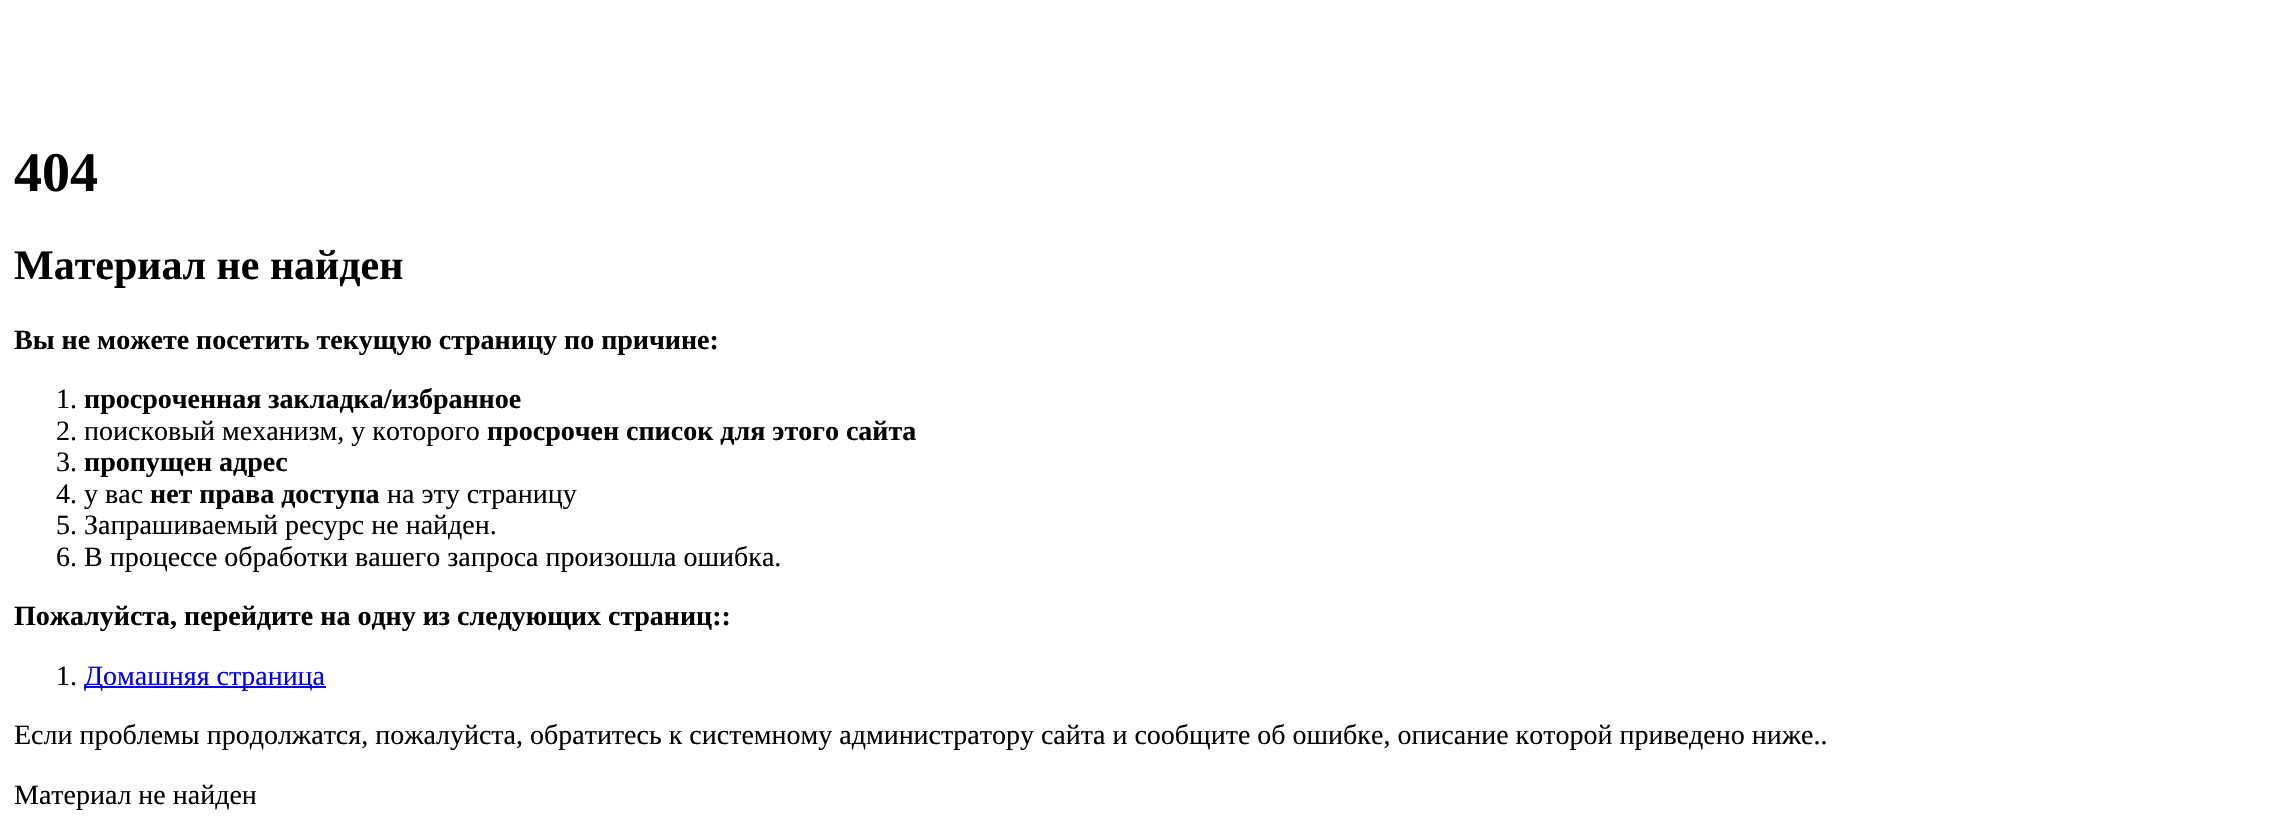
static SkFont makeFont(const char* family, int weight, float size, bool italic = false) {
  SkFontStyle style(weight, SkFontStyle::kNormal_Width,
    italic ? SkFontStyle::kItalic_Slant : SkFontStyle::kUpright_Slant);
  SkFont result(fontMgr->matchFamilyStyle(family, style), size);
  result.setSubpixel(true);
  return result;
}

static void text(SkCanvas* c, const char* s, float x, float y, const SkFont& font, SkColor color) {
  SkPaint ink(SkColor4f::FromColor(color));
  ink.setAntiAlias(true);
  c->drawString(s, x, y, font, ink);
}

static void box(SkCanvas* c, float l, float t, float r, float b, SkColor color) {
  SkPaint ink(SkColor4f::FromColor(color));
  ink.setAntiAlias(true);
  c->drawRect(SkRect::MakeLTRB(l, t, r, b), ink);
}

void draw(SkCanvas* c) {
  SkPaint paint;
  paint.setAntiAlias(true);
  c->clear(0xffffffff);
  SkFont face1 = makeFont("Liberation Serif", 700, 56);
  text(c, "404", 14, 191, face1, 0xff000000);
  SkFont face2 = makeFont("Liberation Serif", 700, 42);
  text(c, "Материал не найден", 14, 279, face2, 0xff000000);
  SkFont face3 = makeFont("Liberation Serif", 700, 28);
  text(c, "Вы не можете посетить текущую страницу по причине:", 14, 349, face3, 0xff000000);
  SkFont face4 = makeFont("Liberation Serif", 400, 28);
  text(c, "1.", 56, 408, face4, 0xff000000);
  text(c, "просроченная закладка/избранное", 84, 408, face3, 0xff000000);
  text(c, "2. поисковый механизм, у которого", 56, 440, face4, 0xff000000);
  text(c, "просрочен список для этого сайта", 487, 440, face3, 0xff000000);
  text(c, "3.", 56, 471, face4, 0xff000000);
  text(c, "пропущен адрес", 84, 471, face3, 0xff000000);
  text(c, "4. у вас", 56, 503, face4, 0xff000000);
  text(c, "нет права доступа", 150, 503, face3, 0xff000000);
  text(c, "на эту страницу", 387, 503, face4, 0xff000000);
  text(c, "5. Запрашиваемый ресурс не найден.", 56, 534, face4, 0xff000000);
  text(c, "6. В процессе обработки вашего запроса произошла ошибка.", 56, 566, face4, 0xff000000);
  text(c, "Пожалуйста, перейдите на одну из следующих страниц::", 14, 625, face3, 0xff000000);
  text(c, "1.", 56, 685, face4, 0xff000000);
  box(c, 84, 686, 326, 688, 0xff0000ee);
  text(c, "Домашняя страница", 84, 685, face4, 0xff0000ee);
  text(c, "Если проблемы продолжатся, пожалуйста, обратитесь к системному администратору сайта и сообщите об ошибке, описание которой приведено ниже..", 14, 744, face4, 0xff000000);
  text(c, "Материал не найден", 14, 804, face4, 0xff000000);
}
